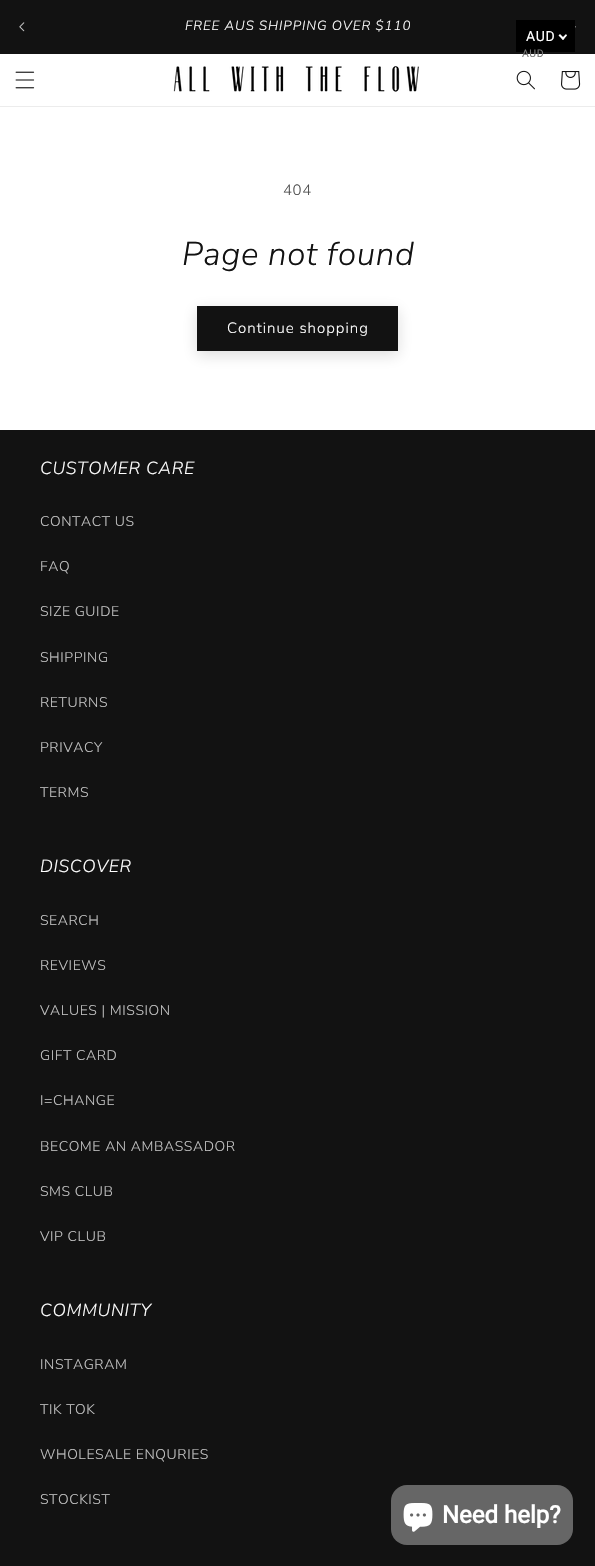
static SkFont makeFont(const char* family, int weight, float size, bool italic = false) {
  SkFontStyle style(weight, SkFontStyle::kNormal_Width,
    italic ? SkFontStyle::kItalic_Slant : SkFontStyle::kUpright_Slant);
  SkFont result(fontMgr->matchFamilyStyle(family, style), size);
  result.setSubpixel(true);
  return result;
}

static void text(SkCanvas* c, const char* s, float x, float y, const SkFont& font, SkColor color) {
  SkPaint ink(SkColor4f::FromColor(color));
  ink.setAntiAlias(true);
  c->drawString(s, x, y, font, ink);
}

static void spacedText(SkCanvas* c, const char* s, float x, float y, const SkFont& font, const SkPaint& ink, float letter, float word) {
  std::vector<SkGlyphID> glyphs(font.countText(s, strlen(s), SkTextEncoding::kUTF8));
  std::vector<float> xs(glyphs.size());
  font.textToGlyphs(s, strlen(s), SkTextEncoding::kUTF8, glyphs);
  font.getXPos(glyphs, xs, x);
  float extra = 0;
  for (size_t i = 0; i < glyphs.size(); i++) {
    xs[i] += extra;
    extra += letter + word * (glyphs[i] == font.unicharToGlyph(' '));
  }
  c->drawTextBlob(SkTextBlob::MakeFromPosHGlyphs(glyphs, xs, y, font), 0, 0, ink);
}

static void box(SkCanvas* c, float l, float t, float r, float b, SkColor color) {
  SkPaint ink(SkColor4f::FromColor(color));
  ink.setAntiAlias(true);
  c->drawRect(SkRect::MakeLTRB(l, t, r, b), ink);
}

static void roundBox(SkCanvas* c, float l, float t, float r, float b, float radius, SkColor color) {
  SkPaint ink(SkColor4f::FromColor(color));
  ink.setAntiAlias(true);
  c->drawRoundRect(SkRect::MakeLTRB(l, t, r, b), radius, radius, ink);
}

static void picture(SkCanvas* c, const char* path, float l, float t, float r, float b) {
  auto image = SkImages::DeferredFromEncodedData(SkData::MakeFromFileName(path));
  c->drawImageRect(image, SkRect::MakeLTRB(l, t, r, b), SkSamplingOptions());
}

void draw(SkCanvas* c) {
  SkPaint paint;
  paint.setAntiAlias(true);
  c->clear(0xffffffff);
  box(c, 0, 0, 595, 54, 0xff121212);
  picture(c, "img_01.png", 19, 22, 25, 32);
  SkFont face1 = makeFont("Nunito Sans", 300, 13.25f, true);
  paint.setColor(0xffffffff);
  spacedText(c, "FREE AUS SHIPPING OVER $110", 185, 30, face1, paint, 1, 0);
  picture(c, "img_02.png", 575, 26, 576, 28);
  box(c, 516, 20, 575, 52, 0xff000000);
  SkFont face2 = makeFont("Roboto", 400, 14);
  spacedText(c, "AUD", 526, 41, face2, paint, 0.6f, 0);
  c->drawPath(SkPathBuilder().moveTo(566, 34).lineTo(567, 35.5f).lineTo(563, 40).lineTo(561.5f, 38.5f).close().detach(), paint);
  c->drawPath(SkPathBuilder().moveTo(560, 34).lineTo(564.5f, 38.5f).lineTo(563, 40).lineTo(558.5f, 35.5f).close().detach(), paint);
  SkFont face3 = makeFont("Roboto", 400, 10.5f);
  paint.setColor(0xff767676);
  spacedText(c, "AUD", 522, 57, face3, paint, 0.5f, 0);
  box(c, 0, 106, 595, 107, 0xffececec);
  picture(c, "img_03.png", 15, 71, 35, 89);
  picture(c, "img_04.png", 173, 66, 419, 92);
  picture(c, "img_05.png", 516, 70, 535, 90);
  picture(c, "img_06.png", 561, 71, 581, 90);
  SkFont face4 = makeFont("Nunito Sans", 300, 15);
  paint.setColor(0xff4d4d4d);
  spacedText(c, "404", 283, 195, face4, paint, 0.6f, 0);
  SkFont face5 = makeFont("Nunito Sans", 300, 33, true);
  paint.setColor(0xff121212);
  spacedText(c, "Page not found", 182, 265, face5, paint, 0.7f, 0);
  paint.setColor(0x26121212);
  paint.setMaskFilter(SkMaskFilter::MakeBlur(kNormal_SkBlurStyle, 7.5f));
  c->drawRect(SkRect::MakeLTRB(197, 310, 398, 355), paint);
  paint.setMaskFilter(nullptr);
  box(c, 197, 306, 398, 351, 0xff121212);
  paint.setColor(0xffffffff);
  spacedText(c, "Continue shopping", 227, 333, face4, paint, 1, 0);
  box(c, 0, 430, 595, 1566, 0xff121212);
  SkFont face6 = makeFont("Nunito Sans", 300, 17.5f, true);
  spacedText(c, "CUSTOMER CARE", 40, 474, face6, paint, 0.7f, 0);
  SkFont face7 = makeFont("Nunito Sans", 300, 14);
  paint.setColor(0xffc4c4c4);
  spacedText(c, "CONTACT US", 40, 526, face7, paint, 0.6f, 0);
  spacedText(c, "FAQ", 40, 571, face7, paint, 0.6f, 0);
  spacedText(c, "SIZE GUIDE", 40, 616, face7, paint, 0.6f, 0);
  spacedText(c, "SHIPPING", 40, 662, face7, paint, 0.6f, 0);
  spacedText(c, "RETURNS", 40, 707, face7, paint, 0.6f, 0);
  spacedText(c, "PRIVACY", 40, 752, face7, paint, 0.6f, 0);
  spacedText(c, "TERMS", 40, 797, face7, paint, 0.6f, 0);
  paint.setColor(0xffffffff);
  spacedText(c, "DISCOVER", 40, 872, face6, paint, 0.7f, 0);
  paint.setColor(0xffc4c4c4);
  spacedText(c, "SEARCH", 40, 925, face7, paint, 0.6f, 0);
  spacedText(c, "REVIEWS", 40, 970, face7, paint, 0.6f, 0);
  spacedText(c, "VALUES | MISSION", 40, 1015, face7, paint, 0.6f, 0);
  spacedText(c, "GIFT CARD", 40, 1060, face7, paint, 0.6f, 0);
  spacedText(c, "I=CHANGE", 40, 1105, face7, paint, 0.6f, 0);
  spacedText(c, "BECOME AN AMBASSADOR", 40, 1151, face7, paint, 0.6f, 0);
  spacedText(c, "SMS CLUB", 40, 1196, face7, paint, 0.6f, 0);
  spacedText(c, "VIP CLUB", 40, 1241, face7, paint, 0.6f, 0);
  paint.setColor(0xffffffff);
  spacedText(c, "COMMUNITY", 40, 1316, face6, paint, 0.7f, 0);
  paint.setColor(0xffc4c4c4);
  spacedText(c, "INSTAGRAM", 40, 1369, face7, paint, 0.6f, 0);
  spacedText(c, "TIK TOK", 40, 1414, face7, paint, 0.6f, 0);
  spacedText(c, "WHOLESALE ENQURIES", 40, 1459, face7, paint, 0.6f, 0);
  spacedText(c, "STOCKIST", 40, 1504, face7, paint, 0.6f, 0);
  roundBox(c, 391, 1485, 573, 1545, 16, 0xff666666);
  picture(c, "img_07.png", 403, 1503, 433, 1532);
  SkFont face8 = makeFont("Roboto", 700, 24);
  text(c, "Need help?", 442, 1523, face8, 0xffffffff);
}
